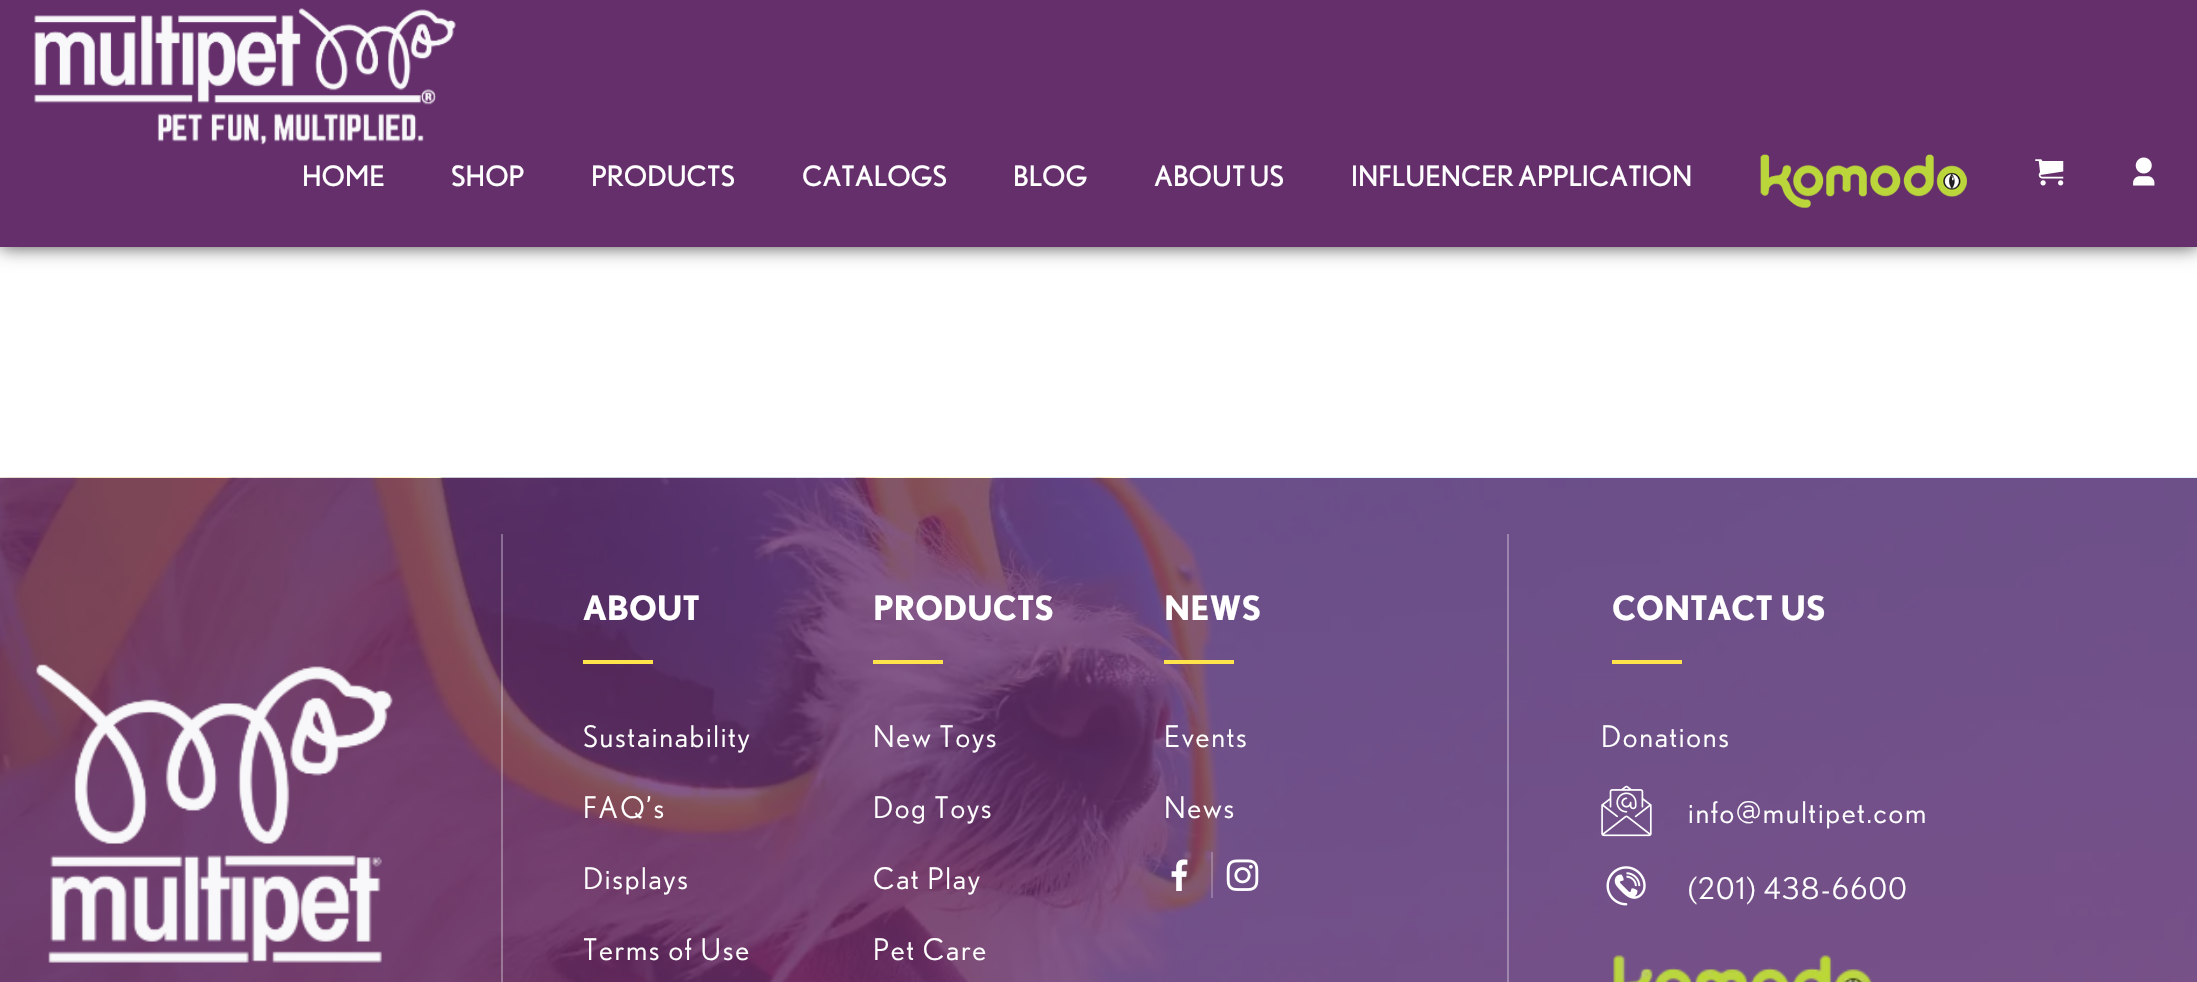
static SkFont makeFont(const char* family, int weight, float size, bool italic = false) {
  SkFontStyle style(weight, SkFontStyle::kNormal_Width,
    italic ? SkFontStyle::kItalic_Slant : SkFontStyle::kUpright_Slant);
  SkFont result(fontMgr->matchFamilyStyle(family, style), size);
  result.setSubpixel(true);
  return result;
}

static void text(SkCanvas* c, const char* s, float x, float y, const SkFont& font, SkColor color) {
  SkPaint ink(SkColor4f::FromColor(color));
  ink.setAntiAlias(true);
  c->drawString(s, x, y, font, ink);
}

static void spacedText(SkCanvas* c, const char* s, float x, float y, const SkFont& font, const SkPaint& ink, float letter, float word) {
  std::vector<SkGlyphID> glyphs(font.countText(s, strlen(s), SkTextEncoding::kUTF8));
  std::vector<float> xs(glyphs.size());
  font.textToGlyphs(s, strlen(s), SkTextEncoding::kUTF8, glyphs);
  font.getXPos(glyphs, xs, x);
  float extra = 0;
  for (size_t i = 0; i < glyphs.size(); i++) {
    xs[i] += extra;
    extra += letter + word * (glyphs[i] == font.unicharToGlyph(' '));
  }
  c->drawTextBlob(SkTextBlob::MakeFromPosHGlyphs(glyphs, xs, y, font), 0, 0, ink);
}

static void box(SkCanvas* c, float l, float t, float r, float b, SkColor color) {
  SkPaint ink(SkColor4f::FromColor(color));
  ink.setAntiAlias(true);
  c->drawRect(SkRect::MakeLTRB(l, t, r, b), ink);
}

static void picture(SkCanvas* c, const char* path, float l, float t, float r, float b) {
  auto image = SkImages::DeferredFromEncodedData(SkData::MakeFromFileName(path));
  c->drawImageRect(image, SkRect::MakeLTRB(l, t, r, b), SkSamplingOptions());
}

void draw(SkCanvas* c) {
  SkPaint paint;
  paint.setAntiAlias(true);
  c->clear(0xffffffff);
  paint.setColor(0xb3000000);
  paint.setMaskFilter(SkMaskFilter::MakeBlur(kNormal_SkBlurStyle, 9));
  c->drawRect(SkRect::MakeLTRB(0, -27, 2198, 247), paint);
  paint.setMaskFilter(nullptr);
  box(c, 0, 0, 2197, 247, 0xff652f6c);
  picture(c, "img_01.png", 34, 8, 456, 145);
  SkFont face1 = makeFont("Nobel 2", 400, 28);
  text(c, "HOME", 302, 186, face1, 0xffffffff);
  text(c, "SHOP", 451, 186, face1, 0xffffffff);
  text(c, "PRODUCTS", 591, 186, face1, 0xffffffff);
  text(c, "CATALOGS", 802, 186, face1, 0xffffffff);
  text(c, "BLOG", 1013, 186, face1, 0xffffffff);
  text(c, "ABOUT US", 1154, 186, face1, 0xffffffff);
  text(c, "INFLUENCER APPLICATION", 1351, 186, face1, 0xffffffff);
  picture(c, "img_02.png", 1760, 154, 1967, 208);
  picture(c, "img_03.png", 2035, 159, 2064, 186);
  picture(c, "img_04.png", 2133, 157, 2155, 186);
  picture(c, "img_05.png", 0, 477, 2197, 982);
  picture(c, "img_06.png", 35, 663, 393, 963);
  box(c, 1507, 534, 1509, 982, 0x4fffffff);
  box(c, 501, 534, 503, 982, 0x4fffffff);
  SkFont face2 = makeFont("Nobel", 700, 33.5f);
  text(c, "ABOUT", 583, 620, face2, 0xffffffff);
  box(c, 583, 660, 653, 664, 0xffffe34b);
  SkFont face3 = makeFont("Nobel", 400, 29.75f);
  paint.setColor(0xffffffff);
  spacedText(c, "Sustainability", 583, 747, face3, paint, 1.75f, 0);
  spacedText(c, "FAQ’s", 583, 818, face3, paint, 1.75f, 0);
  spacedText(c, "Displays", 583, 889, face3, paint, 1.75f, 0);
  spacedText(c, "Terms of Use", 583, 960, face3, paint, 1.75f, 0);
  text(c, "PRODUCTS", 873, 620, face2, 0xffffffff);
  box(c, 873, 660, 943, 664, 0xffffe34b);
  spacedText(c, "New Toys", 873, 747, face3, paint, 1.75f, 0);
  spacedText(c, "Dog Toys", 873, 818, face3, paint, 1.75f, 0);
  spacedText(c, "Cat Play", 873, 889, face3, paint, 1.75f, 0);
  spacedText(c, "Pet Care", 873, 960, face3, paint, 1.75f, 0);
  text(c, "NEWS", 1164, 620, face2, 0xffffffff);
  box(c, 1164, 660, 1234, 664, 0xffffe34b);
  spacedText(c, "Events", 1164, 747, face3, paint, 1.75f, 0);
  spacedText(c, "News", 1164, 818, face3, paint, 1.75f, 0);
  box(c, 1211, 852, 1213, 898, 0x3bffffff);
  picture(c, "img_07.png", 1171, 859, 1188, 891);
  picture(c, "img_08.png", 1226, 859, 1259, 891);
  text(c, "CONTACT US", 1612, 620, face2, 0xffffffff);
  box(c, 1612, 660, 1682, 664, 0xffffe34b);
  spacedText(c, "Donations", 1601, 747, face3, paint, 1.75f, 0);
  picture(c, "img_09.png", 1601, 785, 1652, 837);
  spacedText(c, "info@multipet.com", 1688, 823, face3, paint, 1.75f, 0);
  picture(c, "img_10.png", 1606, 866, 1646, 906);
  spacedText(c, "(201) 438-6600", 1688, 899, face3, paint, 1.75f, 0);
  picture(c, "img_11.png", 1613, 955, 1873, 982);
}
